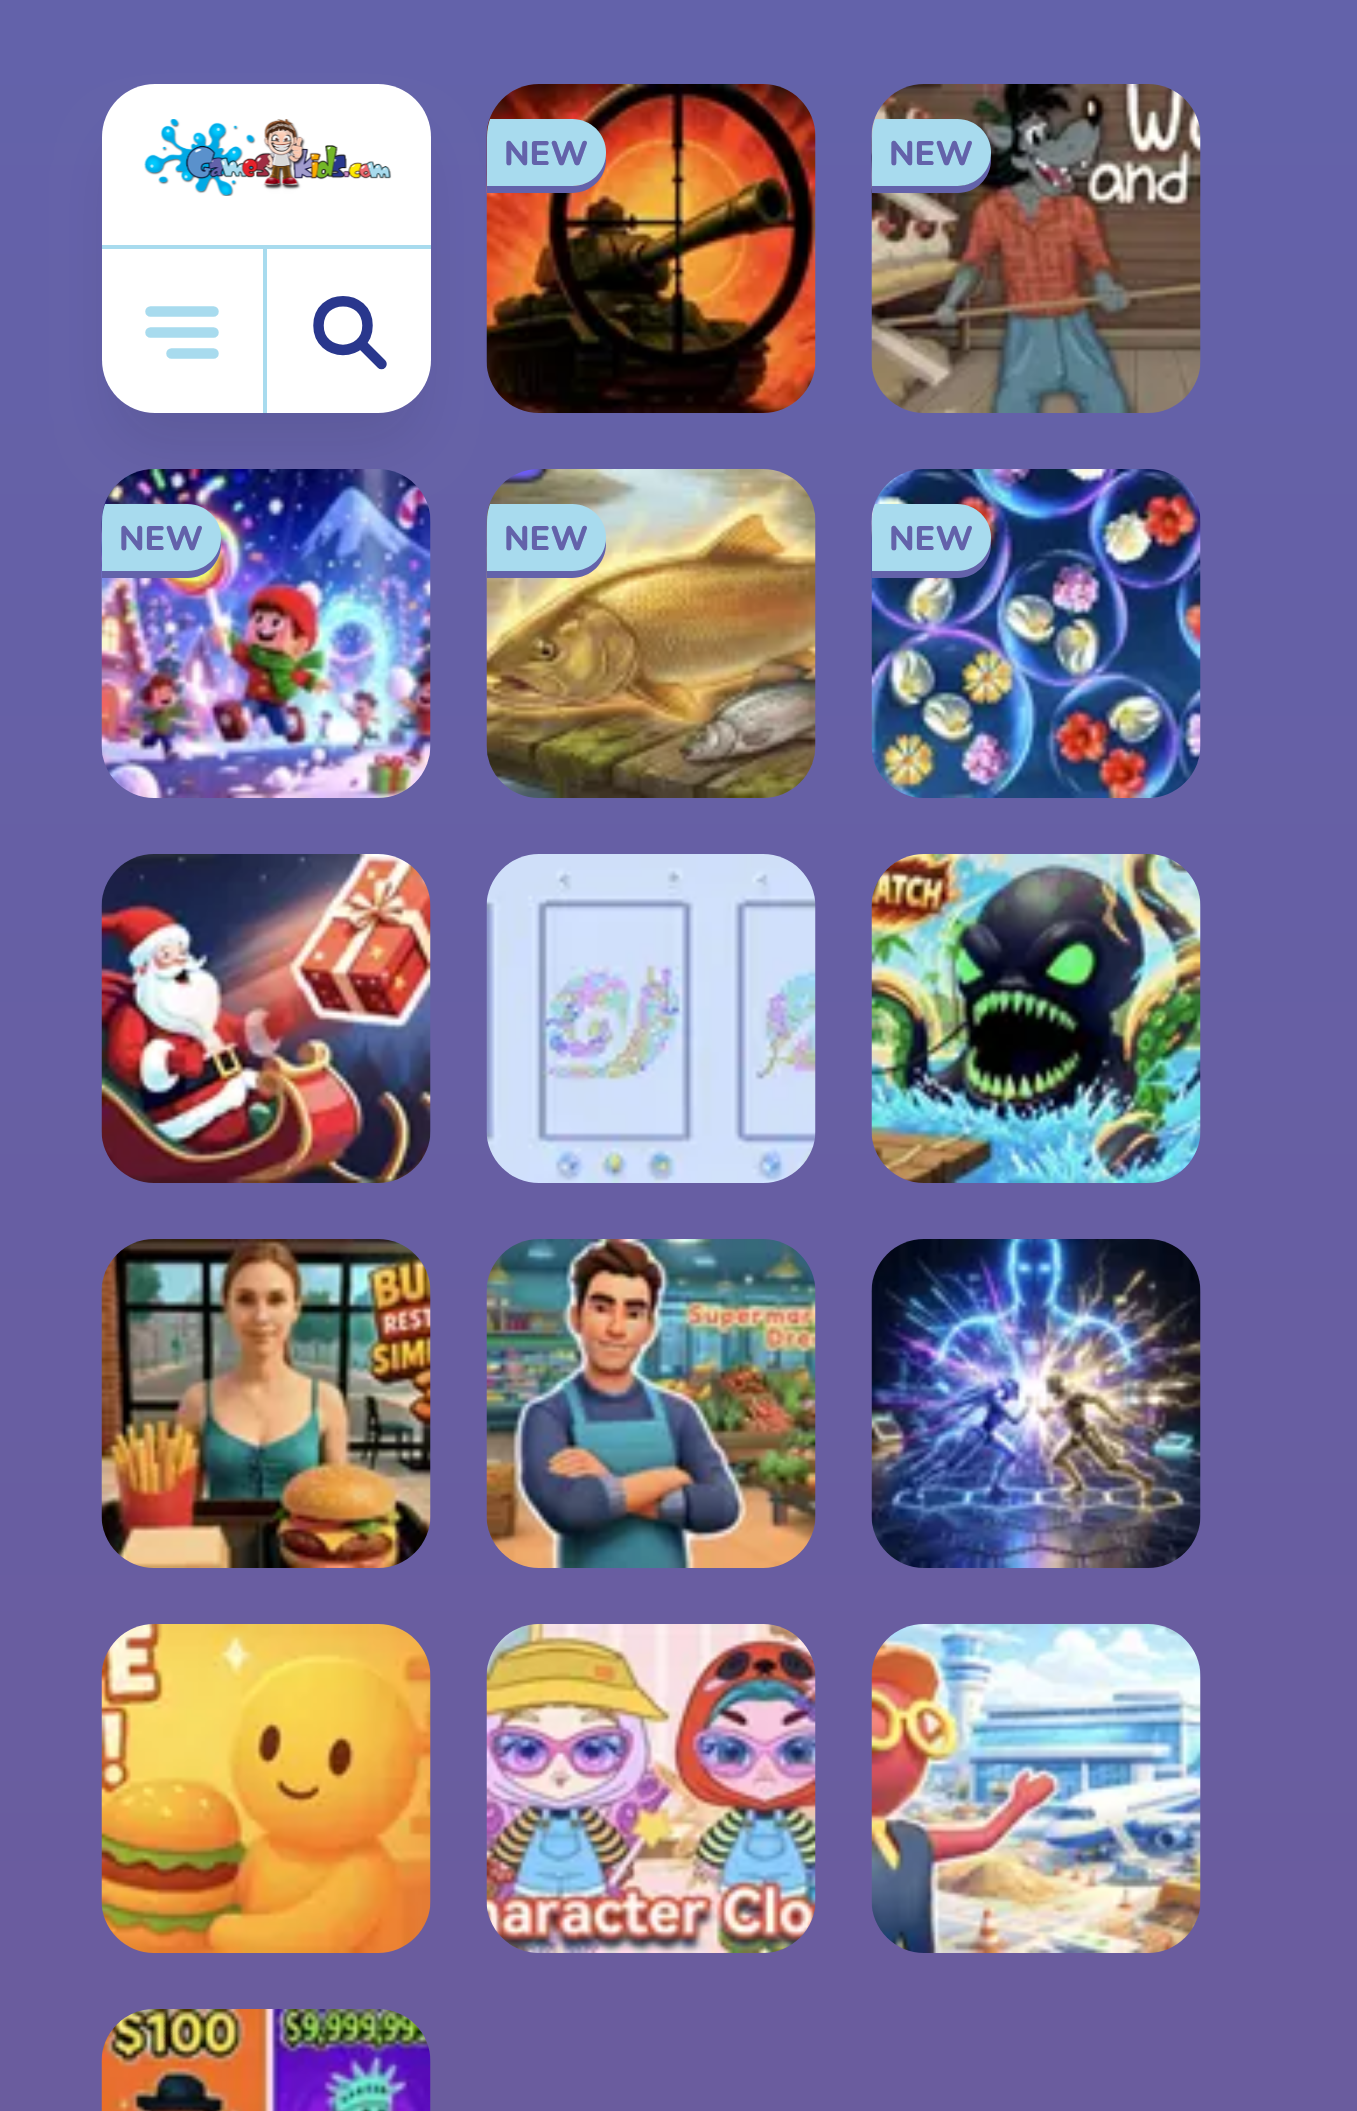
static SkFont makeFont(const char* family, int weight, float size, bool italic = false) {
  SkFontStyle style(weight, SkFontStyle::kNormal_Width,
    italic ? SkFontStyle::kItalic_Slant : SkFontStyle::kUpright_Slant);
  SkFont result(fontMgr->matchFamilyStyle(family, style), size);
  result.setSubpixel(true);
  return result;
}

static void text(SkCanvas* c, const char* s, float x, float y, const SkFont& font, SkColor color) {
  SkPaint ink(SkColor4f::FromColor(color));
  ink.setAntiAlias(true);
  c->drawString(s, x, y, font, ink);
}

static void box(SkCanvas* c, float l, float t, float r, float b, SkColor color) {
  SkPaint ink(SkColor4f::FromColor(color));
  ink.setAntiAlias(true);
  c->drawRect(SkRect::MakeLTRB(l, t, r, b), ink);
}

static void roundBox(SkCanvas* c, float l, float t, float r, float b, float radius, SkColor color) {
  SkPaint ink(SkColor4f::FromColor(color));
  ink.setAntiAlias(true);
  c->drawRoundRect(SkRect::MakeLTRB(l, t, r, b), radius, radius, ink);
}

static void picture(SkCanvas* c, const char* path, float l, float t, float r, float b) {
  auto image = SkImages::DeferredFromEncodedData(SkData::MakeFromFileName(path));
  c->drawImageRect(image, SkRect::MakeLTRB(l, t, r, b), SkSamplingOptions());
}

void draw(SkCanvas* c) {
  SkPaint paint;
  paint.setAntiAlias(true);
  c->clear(0xffffffff);
  {
    const SkColor colors[] = {0xff6362aa, 0xffa02d43};
    const float stops[] = {0, 1};
    const SkPoint ends[] = {{679, 0}, {679, 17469}};
    paint.setShader(SkGradientShader::MakeLinear(ends, colors, stops, 2, SkTileMode::kClamp));
    paint.setAlpha(255);
  }
  c->drawRect(SkRect::MakeLTRB(0, 0, 1357, 2111), paint);
  paint.setShader(nullptr);
  paint.setColor(0x1a101828);
  paint.setMaskFilter(SkMaskFilter::MakeBlur(kNormal_SkBlurStyle, 28));
  c->drawRoundRect(SkRect::MakeLTRB(116, 140, 417, 441), 39, 39, paint);
  paint.setMaskFilter(nullptr);
  roundBox(c, 102, 84, 431, 413, 53, 0xffffffff);
  picture(c, "img_01.png", 144, 119, 392, 196);
  box(c, 102, 245, 431, 249, 0xffa8dbee);
  box(c, 263, 249, 267, 413, 0xffa8dbee);
  paint.setStyle(SkPaint::kStroke_Style);
  paint.setStrokeWidth(10.5f);
  paint.setStrokeCap(SkPaint::kRound_Cap);
  paint.setStrokeJoin(SkPaint::kRound_Join);
  paint.setColor(0xffa8dbee);
  c->drawPath(SkPathBuilder().moveTo(150.5f, 332.5f).lineTo(213.5f, 332.5f).moveTo(150.5f, 311.5f).lineTo(213.5f, 311.5f).moveTo(171.5f, 353.5f).lineTo(213.5f, 353.5f).detach(), paint);
  paint.setColor(0xff29378d);
  c->drawPath(SkPathBuilder().moveTo(381.5f, 364).lineTo(360.5f, 343).moveTo(367.5f, 325.5f).cubicTo(367.5f, 358, 318.5f, 358, 318.5f, 325.5f).cubicTo(318.5f, 293, 367.5f, 293, 367.5f, 325.5f).close().detach(), paint);
  picture(c, "img_02.png", 486, 84, 816, 413);
  paint.setStyle(SkPaint::kFill_Style);
  paint.setColor(0xff6362aa);
  c->drawPath(SkPathBuilder().moveTo(487, 186).lineTo(487, 193).lineTo(572, 193).cubicTo(591, 193, 606, 178, 606, 160).lineTo(605, 154).cubicTo(605, 171, 590, 186, 572, 186).close().detach(), paint);
  c->save();
  c->clipPath(SkPathBuilder().moveTo(540, 84).lineTo(763, 84).cubicTo(792.5f, 84, 816, 107.5f, 816, 137).lineTo(816, 360).cubicTo(816, 389.5f, 792.5f, 413, 763, 413).lineTo(540, 413).cubicTo(510.5f, 413, 487, 389.5f, 487, 360).lineTo(487, 137).cubicTo(487, 107.5f, 510.5f, 84, 540, 84).close().detach(), true);
  paint.setColor(0xffa8dbee);
  c->drawPath(SkPathBuilder().moveTo(487, 119).lineTo(572.5f, 119).cubicTo(591, 119, 606, 134, 606, 152.5f).cubicTo(606, 171, 591, 186, 572.5f, 186).lineTo(487, 186).close().detach(), paint);
  c->restore();
  SkFont face1 = makeFont("Nunito", 800, 34);
  text(c, "NEW", 504, 165, face1, 0xff6362aa);
  picture(c, "img_03.png", 871, 84, 1201, 413);
  paint.setColor(0xff6362aa);
  c->drawPath(SkPathBuilder().moveTo(872, 186).lineTo(872, 193).lineTo(958, 193).cubicTo(976, 193, 991, 178, 991, 160).lineTo(990, 154).cubicTo(990, 171, 975, 186, 957, 186).close().detach(), paint);
  c->save();
  c->clipPath(SkPathBuilder().moveTo(925, 84).lineTo(1148, 84).cubicTo(1177.5f, 84, 1201, 107.5f, 1201, 137).lineTo(1201, 360).cubicTo(1201, 389.5f, 1177.5f, 413, 1148, 413).lineTo(925, 413).cubicTo(895.5f, 413, 872, 389.5f, 872, 360).lineTo(872, 137).cubicTo(872, 107.5f, 895.5f, 84, 925, 84).close().detach(), true);
  paint.setColor(0xffa8dbee);
  c->drawPath(SkPathBuilder().moveTo(872, 119).lineTo(957.5f, 119).cubicTo(976, 119, 991, 134, 991, 152.5f).cubicTo(991, 171, 976, 186, 957.5f, 186).lineTo(872, 186).close().detach(), paint);
  c->restore();
  text(c, "NEW", 889, 165, face1, 0xff6362aa);
  picture(c, "img_04.png", 101, 469, 431, 798);
  paint.setColor(0xff6362aa);
  c->drawPath(SkPathBuilder().moveTo(102, 570).lineTo(102, 578).lineTo(188, 578).cubicTo(206, 578, 221, 563, 221, 544).lineTo(220, 539).cubicTo(220, 556, 205, 570, 187, 570).close().detach(), paint);
  c->save();
  c->clipPath(SkPathBuilder().moveTo(155, 469).lineTo(378, 469).cubicTo(407.5f, 469, 431, 492.5f, 431, 522).lineTo(431, 745).cubicTo(431, 774.5f, 407.5f, 798, 378, 798).lineTo(155, 798).cubicTo(125.5f, 798, 102, 774.5f, 102, 745).lineTo(102, 522).cubicTo(102, 492.5f, 125.5f, 469, 155, 469).close().detach(), true);
  paint.setColor(0xffa8dbee);
  c->drawPath(SkPathBuilder().moveTo(102, 504).lineTo(187.5f, 504).cubicTo(206, 504, 221, 519, 221, 537.5f).cubicTo(221, 556, 206, 571, 187.5f, 571).lineTo(102, 571).close().detach(), paint);
  c->restore();
  text(c, "NEW", 119, 550, face1, 0xff6362aa);
  picture(c, "img_05.png", 486, 469, 816, 798);
  paint.setColor(0xff6362aa);
  c->drawPath(SkPathBuilder().moveTo(487, 570).lineTo(487, 578).lineTo(572, 578).cubicTo(591, 578, 606, 563, 606, 544).lineTo(605, 539).cubicTo(605, 556, 590, 570, 572, 570).close().detach(), paint);
  c->save();
  c->clipPath(SkPathBuilder().moveTo(540, 469).lineTo(763, 469).cubicTo(792.5f, 469, 816, 492.5f, 816, 522).lineTo(816, 745).cubicTo(816, 774.5f, 792.5f, 798, 763, 798).lineTo(540, 798).cubicTo(510.5f, 798, 487, 774.5f, 487, 745).lineTo(487, 522).cubicTo(487, 492.5f, 510.5f, 469, 540, 469).close().detach(), true);
  paint.setColor(0xffa8dbee);
  c->drawPath(SkPathBuilder().moveTo(487, 504).lineTo(572.5f, 504).cubicTo(591, 504, 606, 519, 606, 537.5f).cubicTo(606, 556, 591, 571, 572.5f, 571).lineTo(487, 571).close().detach(), paint);
  c->restore();
  text(c, "NEW", 504, 550, face1, 0xff6362aa);
  picture(c, "img_06.png", 871, 469, 1201, 798);
  paint.setColor(0xff6362aa);
  c->drawPath(SkPathBuilder().moveTo(872, 570).lineTo(872, 578).lineTo(958, 578).cubicTo(976, 578, 991, 563, 991, 544).lineTo(990, 539).cubicTo(990, 556, 975, 570, 957, 570).close().detach(), paint);
  c->save();
  c->clipPath(SkPathBuilder().moveTo(925, 469).lineTo(1148, 469).cubicTo(1177.5f, 469, 1201, 492.5f, 1201, 522).lineTo(1201, 745).cubicTo(1201, 774.5f, 1177.5f, 798, 1148, 798).lineTo(925, 798).cubicTo(895.5f, 798, 872, 774.5f, 872, 745).lineTo(872, 522).cubicTo(872, 492.5f, 895.5f, 469, 925, 469).close().detach(), true);
  paint.setColor(0xffa8dbee);
  c->drawPath(SkPathBuilder().moveTo(872, 504).lineTo(957.5f, 504).cubicTo(976, 504, 991, 519, 991, 537.5f).cubicTo(991, 556, 976, 571, 957.5f, 571).lineTo(872, 571).close().detach(), paint);
  c->restore();
  text(c, "NEW", 889, 550, face1, 0xff6362aa);
  picture(c, "img_07.png", 101, 854, 431, 1183);
  picture(c, "img_08.png", 486, 854, 816, 1183);
  picture(c, "img_09.png", 871, 854, 1201, 1183);
  picture(c, "img_10.png", 101, 1239, 431, 1568);
  picture(c, "img_11.png", 486, 1239, 816, 1568);
  picture(c, "img_12.png", 871, 1239, 1201, 1568);
  picture(c, "img_13.png", 101, 1624, 431, 1953);
  picture(c, "img_14.png", 486, 1624, 816, 1953);
  picture(c, "img_15.png", 871, 1624, 1201, 1953);
  picture(c, "img_16.png", 101, 2009, 431, 2111);
}
